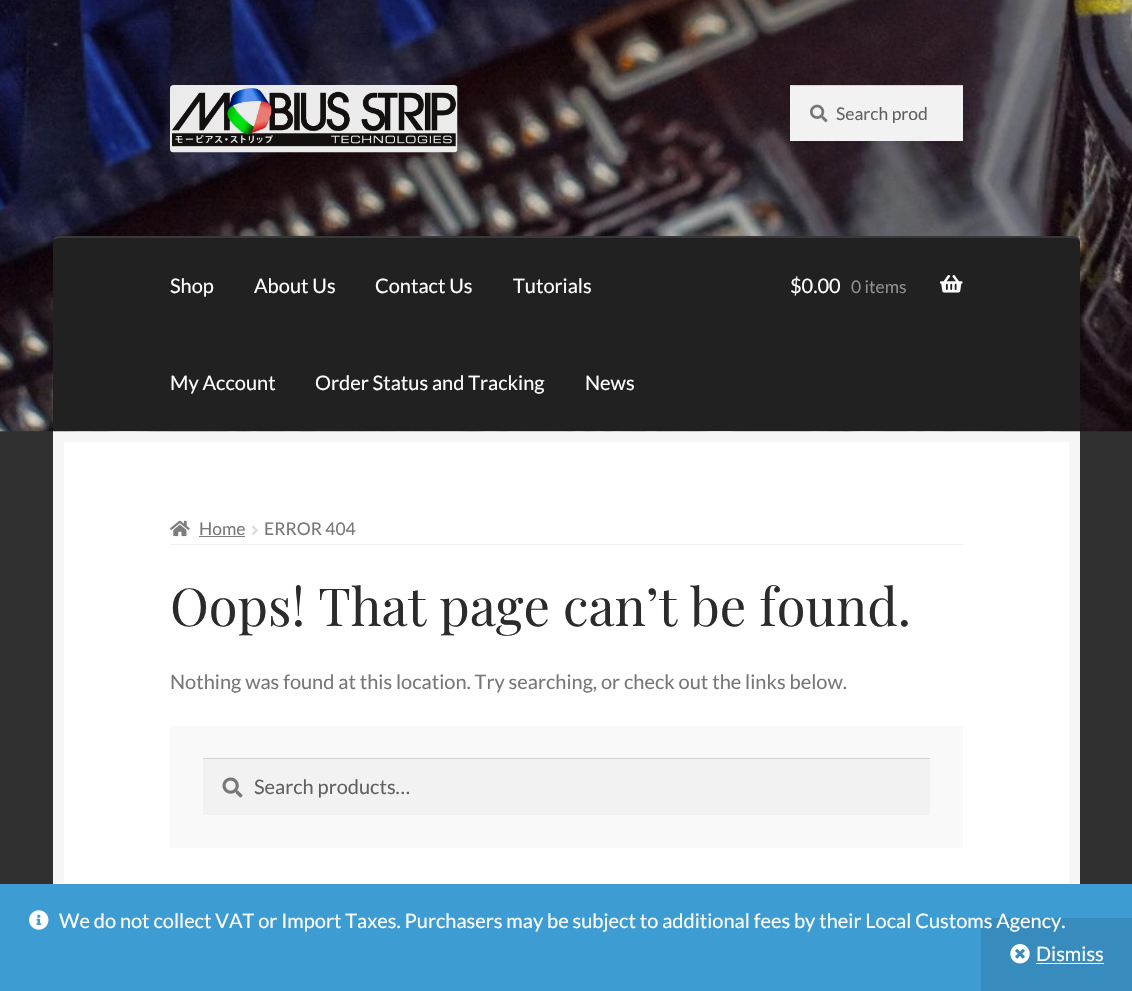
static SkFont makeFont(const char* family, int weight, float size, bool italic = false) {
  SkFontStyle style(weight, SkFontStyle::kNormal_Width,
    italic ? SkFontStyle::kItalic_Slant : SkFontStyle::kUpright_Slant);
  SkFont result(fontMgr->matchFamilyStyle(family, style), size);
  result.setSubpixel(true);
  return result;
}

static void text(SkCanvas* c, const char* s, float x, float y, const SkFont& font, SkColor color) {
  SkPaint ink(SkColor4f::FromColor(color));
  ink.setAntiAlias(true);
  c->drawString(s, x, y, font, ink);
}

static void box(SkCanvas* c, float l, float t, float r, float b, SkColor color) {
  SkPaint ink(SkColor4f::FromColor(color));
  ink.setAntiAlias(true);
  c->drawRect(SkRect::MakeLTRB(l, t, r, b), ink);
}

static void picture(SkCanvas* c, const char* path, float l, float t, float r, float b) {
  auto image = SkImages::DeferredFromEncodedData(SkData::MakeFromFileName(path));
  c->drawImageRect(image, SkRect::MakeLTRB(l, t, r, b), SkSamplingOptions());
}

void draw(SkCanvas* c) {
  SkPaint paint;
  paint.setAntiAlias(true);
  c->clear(0xff303030);
  box(c, 64, 442, 1069, 884, 0xffffffff);
  paint.setStyle(SkPaint::kStroke_Style);
  paint.setStrokeWidth(11);
  paint.setColor(0xfff6f6f6);
  c->drawRect(SkRect::MakeLTRB(58.5f, 436.5f, 1074.5f, 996.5f), paint);
  picture(c, "img_01.png", 0, 0, 1132, 432);
  picture(c, "img_02.png", 170, 85, 458, 153);
  box(c, 790, 86, 963, 141, 0xfff2f2f2);
  picture(c, "img_03.png", 810, 104, 828, 123);
  box(c, 790, 85, 963, 86, 0xffd4d4d4);
  SkFont face1 = makeFont("Lato", 400, 17.5f);
  text(c, "Search prod", 836, 120, face1, 0xff616161);
  paint.setStyle(SkPaint::kFill_Style);
  paint.setColor(0xff212121);
  c->drawPath(SkPathBuilder().moveTo(59, 236).lineTo(1074, 236).cubicTo(1077.5f, 236, 1080, 238.5f, 1080, 242).lineTo(1080, 431).lineTo(53, 431).lineTo(53, 242).cubicTo(53, 238.5f, 55.5f, 236, 59, 236).close().detach(), paint);
  paint.setColor(0x1affffff);
  c->drawPath(SkPathBuilder().moveTo(59, 238).lineTo(1073, 238).cubicTo(1077, 238, 1080, 240, 1080, 244).lineTo(1080, 242).cubicTo(1080, 239, 1077, 236, 1074, 236).lineTo(59, 236).cubicTo(56, 236, 54, 238, 53, 240).cubicTo(55, 239, 57, 238, 59, 238).close().detach(), paint);
  SkFont face2 = makeFont("Lato", 400, 20);
  text(c, "Shop", 170, 293, face2, 0xffffffff);
  text(c, "About Us", 254, 293, face2, 0xffffffff);
  text(c, "Contact Us", 375, 293, face2, 0xffffffff);
  text(c, "Tutorials", 513, 293, face2, 0xffffffff);
  text(c, "My Account", 170, 390, face2, 0xffffffff);
  text(c, "Order Status and Tracking", 315, 390, face2, 0xffffffff);
  text(c, "News", 585, 390, face2, 0xffffffff);
  text(c, "$0.00", 790, 293, face2, 0xffffffff);
  text(c, "0 items", 851, 293, face1, 0xff909090);
  picture(c, "img_04.png", 940, 275, 963, 293);
  box(c, 170, 544, 963, 545, 0xfff2f2f2);
  picture(c, "img_05.png", 170, 520, 190, 537);
  text(c, "Home", 199, 535, face1, 0xff777777);
  box(c, 199, 536, 245, 537, 0xff7c7c7c);
  picture(c, "img_06.png", 252, 525, 258, 535);
  text(c, "ERROR 404", 264, 535, face1, 0xff777777);
  SkFont face3 = makeFont("Playfair Display", 400, 52.4f);
  text(c, "Oops! That page can’t be found.", 170, 626, face3, 0xff2b2b2b);
  text(c, "Nothing was found at this location. Try searching, or check out the links below.", 170, 689, face2, 0xff777777);
  box(c, 170, 726, 963, 848, 0xfff9f9f9);
  box(c, 203, 759, 930, 815, 0xfff2f2f2);
  picture(c, "img_07.png", 222, 777, 243, 798);
  box(c, 203, 758, 930, 759, 0xffd4d4d4);
  text(c, "Search products…", 254, 794, face2, 0xff616161);
  box(c, 0, 884, 1132, 991, 0xff3d9cd2);
  picture(c, "img_08.png", 29, 910, 49, 930);
  box(c, 981, 918, 1132, 991, 0xff378cbd);
  text(c, "We do not collect VAT or Import Taxes. Purchasers may be subject to additional fees by their Local Customs Agency.", 59, 928, face2, 0xffffffff);
  picture(c, "img_09.png", 1010, 944, 1030, 964);
  text(c, "Dismiss", 1036, 961, face2, 0xffffffff);
  box(c, 1036, 963, 1104, 964, 0xffffffff);
}
